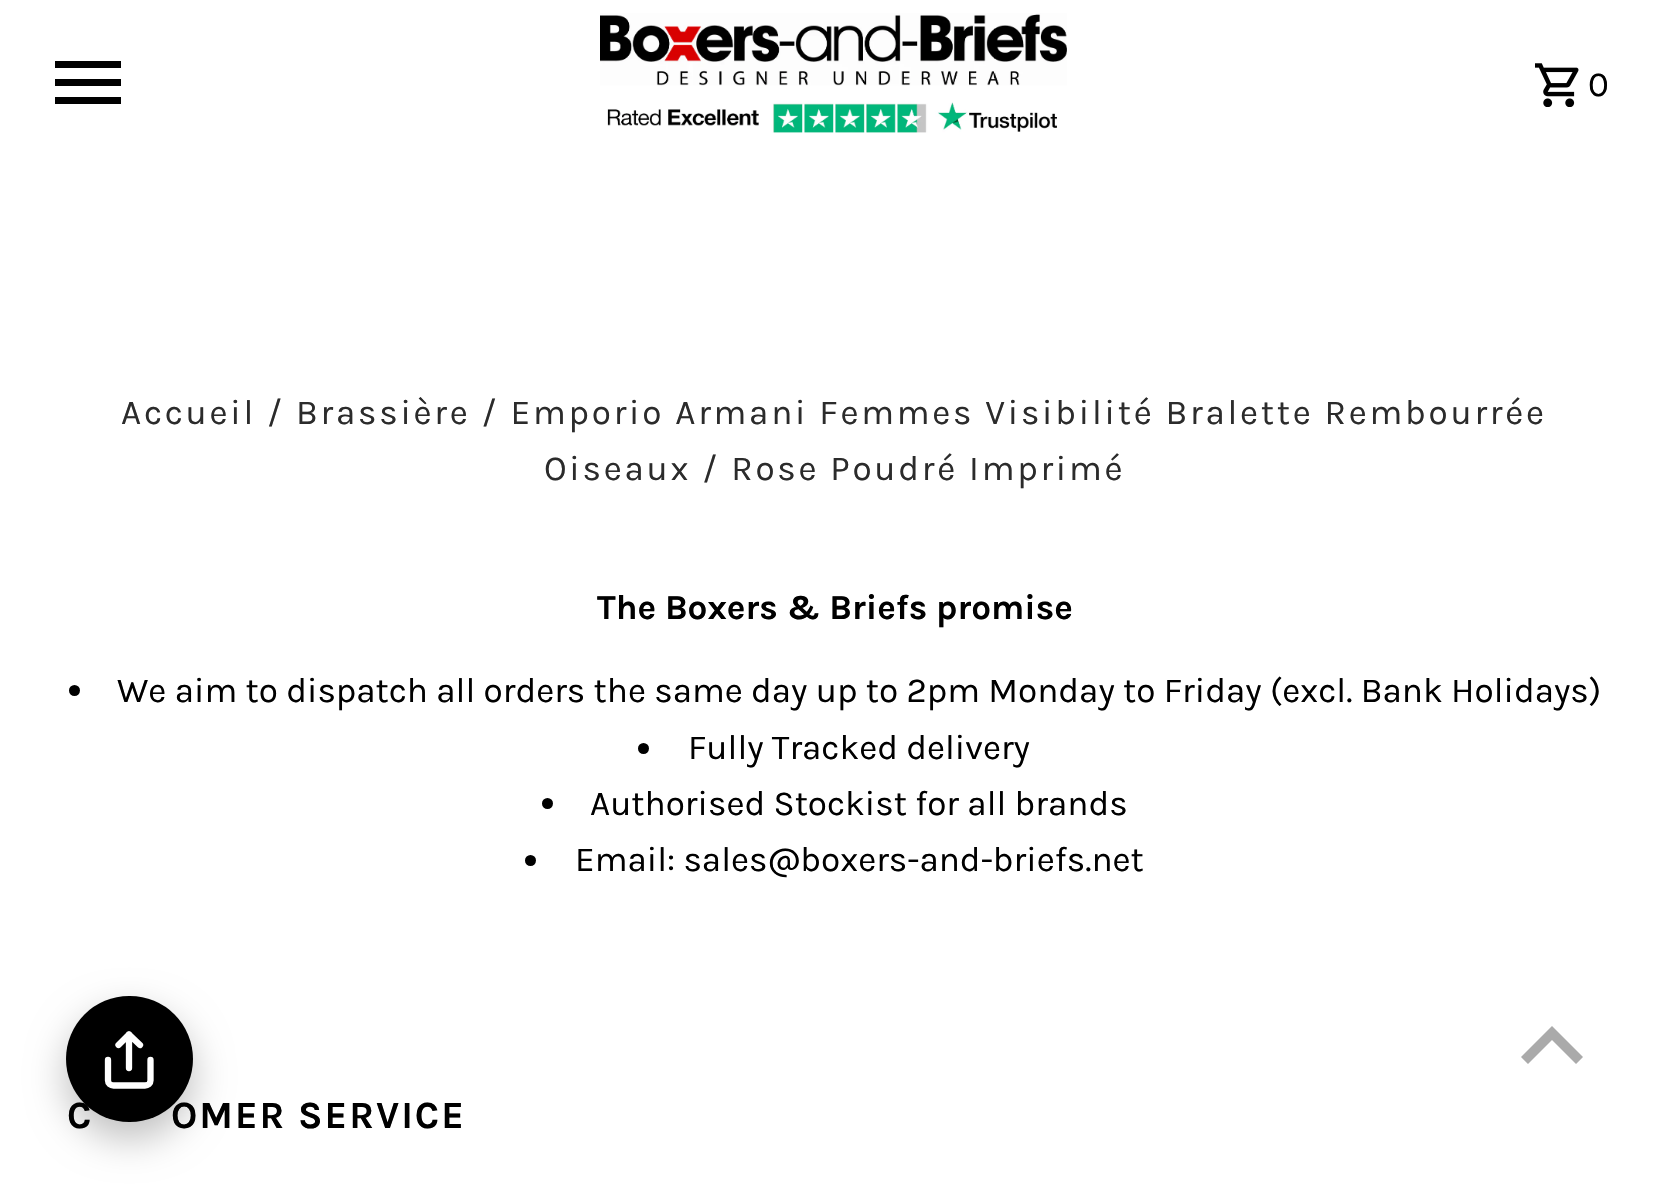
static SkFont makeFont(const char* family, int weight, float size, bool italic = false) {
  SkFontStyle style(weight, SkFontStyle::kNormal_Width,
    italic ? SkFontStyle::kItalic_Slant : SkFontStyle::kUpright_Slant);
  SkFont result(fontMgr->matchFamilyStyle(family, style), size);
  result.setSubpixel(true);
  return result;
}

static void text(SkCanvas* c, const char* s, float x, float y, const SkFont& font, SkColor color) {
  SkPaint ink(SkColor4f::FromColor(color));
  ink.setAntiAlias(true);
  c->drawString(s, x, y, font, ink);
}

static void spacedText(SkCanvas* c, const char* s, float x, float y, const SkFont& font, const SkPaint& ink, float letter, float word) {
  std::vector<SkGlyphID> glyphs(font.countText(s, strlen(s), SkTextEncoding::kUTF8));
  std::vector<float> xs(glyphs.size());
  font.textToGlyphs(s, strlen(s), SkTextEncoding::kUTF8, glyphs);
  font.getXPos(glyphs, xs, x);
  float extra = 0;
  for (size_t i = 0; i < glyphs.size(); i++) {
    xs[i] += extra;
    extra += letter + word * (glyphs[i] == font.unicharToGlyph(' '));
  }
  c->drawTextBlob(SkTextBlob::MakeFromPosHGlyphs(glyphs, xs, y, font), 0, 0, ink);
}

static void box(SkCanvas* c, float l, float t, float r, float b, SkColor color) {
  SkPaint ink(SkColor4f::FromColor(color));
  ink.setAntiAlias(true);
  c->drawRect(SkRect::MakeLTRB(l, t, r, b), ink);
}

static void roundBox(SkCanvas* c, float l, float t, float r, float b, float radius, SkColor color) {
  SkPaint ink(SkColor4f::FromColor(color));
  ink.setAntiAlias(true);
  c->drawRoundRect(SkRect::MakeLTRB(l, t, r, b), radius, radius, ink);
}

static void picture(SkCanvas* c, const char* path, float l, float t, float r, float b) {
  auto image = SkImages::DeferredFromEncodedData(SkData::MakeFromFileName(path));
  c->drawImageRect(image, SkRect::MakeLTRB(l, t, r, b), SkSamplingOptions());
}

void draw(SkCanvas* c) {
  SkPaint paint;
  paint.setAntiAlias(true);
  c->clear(0xffffffff);
  box(c, 55, 97, 121, 104, 0xff000000);
  box(c, 55, 79, 121, 86, 0xff000000);
  box(c, 55, 61, 121, 68, 0xff000000);
  picture(c, "img_01.png", 600, 13, 1067, 133);
  picture(c, "img_02.png", 1535, 63, 1579, 107);
  SkFont face1 = makeFont("Karla", 400, 35.05f);
  paint.setColor(0xff000000);
  spacedText(c, "0", 1588, 96, face1, paint, 2.75f, 0);
  paint.setColor(0xff2b2b2b);
  spacedText(c, "Accueil / Brassière / Emporio Armani Femmes Visibilité Bralette Rembourrée", 121, 424, face1, paint, 2.75f, 0);
  spacedText(c, "Oiseaux / Rose Poudré Imprimé", 544, 480, face1, paint, 2.75f, 0);
  SkFont face2 = makeFont("Karla", 700, 35.05f);
  text(c, "The Boxers & Briefs promise", 597, 619, face2, 0xff000000);
  paint.setColor(0xff000000);
  c->drawCircle(74.5f, 690.5f, 5.5f, paint);
  text(c, "We aim to dispatch all orders the same day up to 2pm Monday to Friday (excl. Bank Holidays)", 117, 702, face1, 0xff000000);
  c->drawCircle(643.5f, 748.5f, 5.5f, paint);
  text(c, "Fully Tracked delivery", 688, 759, face1, 0xff000000);
  c->drawCircle(547.5f, 803.5f, 5.5f, paint);
  text(c, "Authorised Stockist for all brands", 590, 815, face1, 0xff000000);
  c->drawCircle(530.5f, 860.5f, 5.5f, paint);
  text(c, "Email: sales@boxers-and-briefs.net", 575, 871, face1, 0xff000000);
  paint.setColor(0x40000000);
  paint.setMaskFilter(SkMaskFilter::MakeBlur(kNormal_SkBlurStyle, 19));
  c->drawRoundRect(SkRect::MakeLTRB(66, 1012, 193, 1139), 63.5f, 63.5f, paint);
  paint.setMaskFilter(nullptr);
  roundBox(c, 66, 996, 193, 1122, 63, 0xff000000);
  paint.setStyle(SkPaint::kStroke_Style);
  paint.setStrokeWidth(6.3f);
  paint.setStrokeCap(SkPaint::kRound_Cap);
  paint.setStrokeJoin(SkPaint::kRound_Join);
  paint.setColor(0xffffffff);
  c->drawPath(SkPathBuilder().moveTo(108, 1060).lineTo(108, 1080.5f).cubicTo(108, 1083.5f, 110.5f, 1085.5f, 113.5f, 1085.5f).lineTo(145, 1085.5f).cubicTo(148, 1085.5f, 150.5f, 1083.5f, 150.5f, 1080.5f).lineTo(150.5f, 1060).moveTo(140, 1045).lineTo(129, 1034.5f).lineTo(118.5f, 1045).moveTo(129, 1034.5f).lineTo(129, 1068).detach(), paint);
  paint.setStyle(SkPaint::kFill_Style);
  paint.setColor(0xffaaaaaa);
  c->drawPath(SkPathBuilder().moveTo(1552, 1026).lineTo(1521, 1057).lineTo(1528, 1064).lineTo(1552, 1040).lineTo(1576, 1064).lineTo(1583, 1057).close().detach(), paint);
  SkFont face3 = makeFont("Karla", 700, 38.5f);
  paint.setColor(0xff000000);
  spacedText(c, "C", 67, 1128, face3, paint, 2, 0);
  spacedText(c, "OMER SERVICE", 171, 1128, face3, paint, 2, 0);
}
